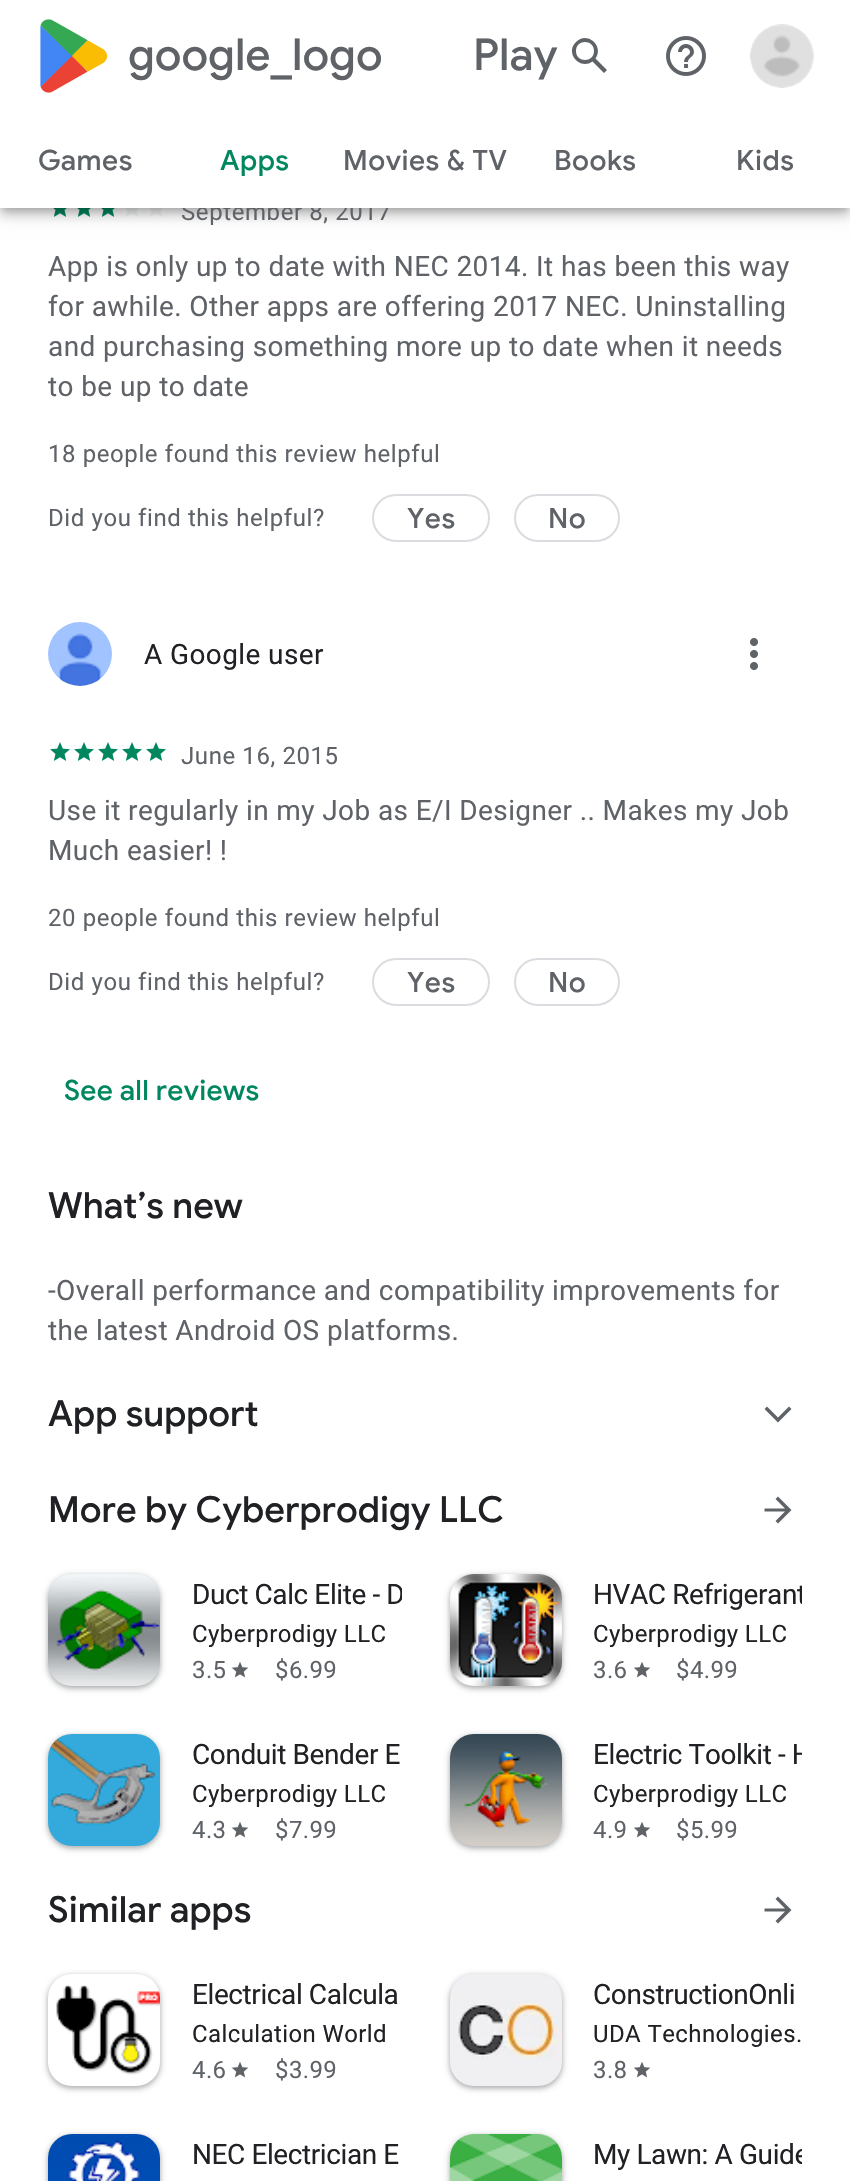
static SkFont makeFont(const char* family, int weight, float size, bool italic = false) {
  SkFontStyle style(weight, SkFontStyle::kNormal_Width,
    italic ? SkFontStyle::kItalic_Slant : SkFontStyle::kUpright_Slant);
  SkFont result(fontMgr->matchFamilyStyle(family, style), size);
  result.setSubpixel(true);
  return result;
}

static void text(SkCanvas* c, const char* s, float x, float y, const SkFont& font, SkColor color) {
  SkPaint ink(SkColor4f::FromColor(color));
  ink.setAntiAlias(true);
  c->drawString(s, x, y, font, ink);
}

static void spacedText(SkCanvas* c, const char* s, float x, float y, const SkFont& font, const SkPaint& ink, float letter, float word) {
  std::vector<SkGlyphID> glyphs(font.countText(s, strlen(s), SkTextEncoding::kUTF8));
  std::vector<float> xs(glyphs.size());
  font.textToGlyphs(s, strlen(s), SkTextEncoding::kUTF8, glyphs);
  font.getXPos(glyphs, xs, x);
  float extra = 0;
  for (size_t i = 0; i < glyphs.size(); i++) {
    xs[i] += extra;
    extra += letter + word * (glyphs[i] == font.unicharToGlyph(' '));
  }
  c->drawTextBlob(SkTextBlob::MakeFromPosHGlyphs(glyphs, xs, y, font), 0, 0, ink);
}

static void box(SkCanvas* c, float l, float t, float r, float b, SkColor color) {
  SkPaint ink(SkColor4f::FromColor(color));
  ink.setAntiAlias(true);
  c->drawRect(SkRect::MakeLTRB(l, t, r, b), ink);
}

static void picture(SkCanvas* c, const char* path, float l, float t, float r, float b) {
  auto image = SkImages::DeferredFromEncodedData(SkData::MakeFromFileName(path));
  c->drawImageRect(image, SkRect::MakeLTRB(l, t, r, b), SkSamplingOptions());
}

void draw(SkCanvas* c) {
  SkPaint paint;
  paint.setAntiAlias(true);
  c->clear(0xffffffff);
  picture(c, "img_04.png", 53, 208, 67, 217);
  picture(c, "img_04.png", 77, 208, 91, 217);
  picture(c, "img_04.png", 101, 208, 115, 217);
  picture(c, "img_05.png", 125, 208, 139, 217);
  picture(c, "img_05.png", 149, 208, 163, 217);
  paint.setColor(0x33000000);
  paint.setMaskFilter(SkMaskFilter::MakeBlur(kNormal_SkBlurStyle, 4));
  c->drawRect(SkRect::MakeLTRB(2, 6, 848, 210), paint);
  paint.setMaskFilter(nullptr);
  paint.setColor(0x1f000000);
  paint.setMaskFilter(SkMaskFilter::MakeBlur(kNormal_SkBlurStyle, 10));
  c->drawRect(SkRect::MakeLTRB(0, 2, 850, 210), paint);
  paint.setMaskFilter(nullptr);
  paint.setColor(0x24000000);
  paint.setMaskFilter(SkMaskFilter::MakeBlur(kNormal_SkBlurStyle, 5));
  c->drawRect(SkRect::MakeLTRB(0, 8, 850, 216), paint);
  paint.setMaskFilter(nullptr);
  SkFont face1 = makeFont("Roboto", 400, 24);
  paint.setColor(0xff5f6368);
  spacedText(c, "September 8, 2017", 181, 220, face1, paint, 0.6f, 0);
  box(c, 0, 0, 850, 208, 0xffffffff);
  picture(c, "img_01.png", 40, 19, 108, 93);
  SkFont face2 = makeFont("Google Sans", 500, 44);
  spacedText(c, "google_logo", 128, 70, face2, paint, 0, 110);
  spacedText(c, "Play", 473, 70, face2, paint, 0, 110);
  c->drawPath(SkPathBuilder().moveTo(607, 70).lineTo(595.5f, 58.5f).cubicTo(604.5f, 46, 587, 30.5f, 576, 42).cubicTo(564.5f, 53, 580, 70.5f, 592.5f, 61.5f).lineTo(604, 73).close().moveTo(576, 51).cubicTo(576, 39, 594, 39, 594, 51).cubicTo(594, 63, 576, 63, 576, 51).close().detach(), paint);
  picture(c, "img_02.png", 666, 36, 706, 76);
  picture(c, "img_03.png", 750, 24, 814, 88);
  SkFont face3 = makeFont("Google Sans", 500, 28);
  spacedText(c, "Games", 38, 170, face3, paint, 0.5f, 0);
  paint.setColor(0xff01875f);
  spacedText(c, "Apps", 220, 170, face3, paint, 0.5f, 0);
  paint.setColor(0xff5f6368);
  spacedText(c, "Movies & TV", 343, 170, face3, paint, 0.5f, 0);
  spacedText(c, "Books", 554, 170, face3, paint, 0.5f, 0);
  spacedText(c, "Kids", 736, 170, face3, paint, 0.5f, 0);
  SkFont face4 = makeFont("Roboto", 400, 28);
  spacedText(c, "App is only up to date with NEC 2014. It has been this way", 48, 276, face4, paint, 0.4f, 0);
  spacedText(c, "for awhile. Other apps are offering 2017 NEC. Uninstalling", 48, 316, face4, paint, 0.4f, 0);
  spacedText(c, "and purchasing something more up to date when it needs", 48, 356, face4, paint, 0.4f, 0);
  spacedText(c, "to be up to date", 48, 396, face4, paint, 0.4f, 0);
  spacedText(c, "18 people found this review helpful", 48, 462, face1, paint, 0.6f, 0);
  spacedText(c, "Did you find this helpful?", 48, 526, face1, paint, 0.6f, 0);
  paint.setStyle(SkPaint::kStroke_Style);
  paint.setStrokeWidth(2);
  paint.setColor(0xffdadce0);
  c->drawRoundRect(SkRect::MakeLTRB(373, 495, 489, 541), 23, 23, paint);
  paint.setStyle(SkPaint::kFill_Style);
  paint.setColor(0xff5f6368);
  spacedText(c, "Yes", 407, 528, face3, paint, 0.5f, 0);
  paint.setStyle(SkPaint::kStroke_Style);
  paint.setColor(0xffdadce0);
  c->drawRoundRect(SkRect::MakeLTRB(515, 495, 619, 541), 23, 23, paint);
  paint.setStyle(SkPaint::kFill_Style);
  paint.setColor(0xff5f6368);
  spacedText(c, "No", 548, 528, face3, paint, 0.5f, 0);
  picture(c, "img_06.png", 48, 622, 112, 686);
  paint.setColor(0xff202124);
  spacedText(c, "A Google user", 144, 664, face4, paint, 0.4f, 0);
  picture(c, "img_07.png", 750, 638, 758, 670);
  picture(c, "img_08.png", 50, 742, 70, 761);
  picture(c, "img_08.png", 74, 742, 94, 761);
  picture(c, "img_08.png", 98, 742, 118, 761);
  picture(c, "img_08.png", 122, 742, 142, 761);
  picture(c, "img_08.png", 146, 742, 166, 761);
  paint.setColor(0xff5f6368);
  spacedText(c, "June 16, 2015", 181, 764, face1, paint, 0.6f, 0);
  spacedText(c, "Use it regularly in my Job as E/I Designer .. Makes my Job", 48, 820, face4, paint, 0.4f, 0);
  spacedText(c, "Much easier! !", 48, 860, face4, paint, 0.4f, 0);
  spacedText(c, "20 people found this review helpful", 48, 926, face1, paint, 0.6f, 0);
  spacedText(c, "Did you find this helpful?", 48, 990, face1, paint, 0.6f, 0);
  paint.setStyle(SkPaint::kStroke_Style);
  paint.setColor(0xffdadce0);
  c->drawRoundRect(SkRect::MakeLTRB(373, 959, 489, 1005), 23, 23, paint);
  paint.setStyle(SkPaint::kFill_Style);
  paint.setColor(0xff5f6368);
  spacedText(c, "Yes", 407, 992, face3, paint, 0.5f, 0);
  paint.setStyle(SkPaint::kStroke_Style);
  paint.setColor(0xffdadce0);
  c->drawRoundRect(SkRect::MakeLTRB(515, 959, 619, 1005), 23, 23, paint);
  paint.setStyle(SkPaint::kFill_Style);
  paint.setColor(0xff5f6368);
  spacedText(c, "No", 548, 992, face3, paint, 0.5f, 0);
  paint.setColor(0xff01875f);
  spacedText(c, "See all reviews", 64, 1100, face3, paint, 0.25f, 0);
  SkFont face5 = makeFont("Google Sans", 500, 36);
  text(c, "What’s new", 48, 1218, face5, 0xff202124);
  paint.setColor(0xff5f6368);
  spacedText(c, "-Overall performance and compatibility improvements for", 48, 1300, face4, paint, 0.4f, 0);
  spacedText(c, "the latest Android OS platforms.", 48, 1340, face4, paint, 0.4f, 0);
  text(c, "App support", 48, 1426, face5, 0xff202124);
  c->drawPath(SkPathBuilder().moveTo(767, 1406.5f).lineTo(764.5f, 1409).lineTo(778, 1422.5f).lineTo(791.5f, 1409).lineTo(789, 1406.5f).lineTo(778, 1417.5f).close().detach(), paint);
  text(c, "More by Cyberprodigy LLC", 48, 1522, face5, 0xff202124);
  c->drawPath(SkPathBuilder().moveTo(778, 1496.5f).lineTo(775.5f, 1499).lineTo(785, 1508.5f).lineTo(764.5f, 1508.5f).lineTo(764.5f, 1511.5f).lineTo(785, 1511.5f).lineTo(775.5f, 1521).lineTo(778, 1523.5f).lineTo(791.5f, 1510).close().detach(), paint);
  paint.setColor(0x263c4043);
  paint.setMaskFilter(SkMaskFilter::MakeBlur(kNormal_SkBlurStyle, 3));
  c->drawRoundRect(SkRect::MakeLTRB(46, 1574, 162, 1690), 26, 26, paint);
  paint.setMaskFilter(nullptr);
  paint.setColor(0x4d3c4043);
  paint.setMaskFilter(SkMaskFilter::MakeBlur(kNormal_SkBlurStyle, 2));
  c->drawRoundRect(SkRect::MakeLTRB(48, 1576, 160, 1688), 24, 24, paint);
  paint.setMaskFilter(nullptr);
  picture(c, "img_09.png", 48, 1574, 160, 1686);
  c->save();
  c->clipRect(SkRect::MakeLTRB(192, 1574, 402, 1614));
  paint.setColor(0xff202124);
  spacedText(c, "Duct Calc Elite - D", 192, 1604, face4, paint, -0.4f, 0);
  c->restore();
  spacedText(c, "Cyberprodigy LLC", 192, 1642, face1, paint, 0.4f, 0);
  paint.setColor(0xff5f6368);
  spacedText(c, "3.5", 192, 1678, face1, paint, 0.4f, 0);
  picture(c, "img_10.png", 231, 1662, 249, 1678);
  spacedText(c, "$6.99", 275, 1678, face1, paint, 0.4f, 0);
  paint.setColor(0x263c4043);
  paint.setMaskFilter(SkMaskFilter::MakeBlur(kNormal_SkBlurStyle, 3));
  c->drawRoundRect(SkRect::MakeLTRB(448, 1574, 564, 1690), 26, 26, paint);
  paint.setMaskFilter(nullptr);
  paint.setColor(0x4d3c4043);
  paint.setMaskFilter(SkMaskFilter::MakeBlur(kNormal_SkBlurStyle, 2));
  c->drawRoundRect(SkRect::MakeLTRB(450, 1576, 562, 1688), 24, 24, paint);
  paint.setMaskFilter(nullptr);
  picture(c, "img_11.png", 450, 1574, 562, 1686);
  c->save();
  c->clipRect(SkRect::MakeLTRB(594, 1574, 802, 1614));
  paint.setColor(0xff202124);
  spacedText(c, "HVAC Refrigerant", 593, 1604, face4, paint, -0.4f, 0);
  c->restore();
  spacedText(c, "Cyberprodigy LLC", 593, 1642, face1, paint, 0.4f, 0);
  paint.setColor(0xff5f6368);
  spacedText(c, "3.6", 593, 1678, face1, paint, 0.4f, 0);
  picture(c, "img_10.png", 633, 1662, 651, 1678);
  spacedText(c, "$4.99", 676, 1678, face1, paint, 0.4f, 0);
  paint.setColor(0x263c4043);
  paint.setMaskFilter(SkMaskFilter::MakeBlur(kNormal_SkBlurStyle, 3));
  c->drawRoundRect(SkRect::MakeLTRB(46, 1734, 162, 1850), 26, 26, paint);
  paint.setMaskFilter(nullptr);
  paint.setColor(0x4d3c4043);
  paint.setMaskFilter(SkMaskFilter::MakeBlur(kNormal_SkBlurStyle, 2));
  c->drawRoundRect(SkRect::MakeLTRB(48, 1736, 160, 1848), 24, 24, paint);
  paint.setMaskFilter(nullptr);
  picture(c, "img_12.png", 48, 1734, 160, 1846);
  paint.setColor(0xff202124);
  spacedText(c, "Conduit Bender E", 192, 1764, face4, paint, -0.4f, 0);
  spacedText(c, "Cyberprodigy LLC", 192, 1802, face1, paint, 0.4f, 0);
  paint.setColor(0xff5f6368);
  spacedText(c, "4.3", 192, 1838, face1, paint, 0.4f, 0);
  picture(c, "img_10.png", 231, 1822, 249, 1838);
  spacedText(c, "$7.99", 275, 1838, face1, paint, 0.4f, 0);
  paint.setColor(0x263c4043);
  paint.setMaskFilter(SkMaskFilter::MakeBlur(kNormal_SkBlurStyle, 3));
  c->drawRoundRect(SkRect::MakeLTRB(448, 1734, 564, 1850), 26, 26, paint);
  paint.setMaskFilter(nullptr);
  paint.setColor(0x4d3c4043);
  paint.setMaskFilter(SkMaskFilter::MakeBlur(kNormal_SkBlurStyle, 2));
  c->drawRoundRect(SkRect::MakeLTRB(450, 1736, 562, 1848), 24, 24, paint);
  paint.setMaskFilter(nullptr);
  picture(c, "img_13.png", 450, 1734, 562, 1846);
  c->save();
  c->clipRect(SkRect::MakeLTRB(594, 1734, 802, 1774));
  paint.setColor(0xff202124);
  spacedText(c, "Electric Toolkit - H", 593, 1764, face4, paint, -0.4f, 0);
  c->restore();
  spacedText(c, "Cyberprodigy LLC", 593, 1802, face1, paint, 0.4f, 0);
  paint.setColor(0xff5f6368);
  spacedText(c, "4.9", 593, 1838, face1, paint, 0.4f, 0);
  picture(c, "img_10.png", 633, 1822, 651, 1838);
  spacedText(c, "$5.99", 676, 1838, face1, paint, 0.4f, 0);
  text(c, "Similar apps", 48, 1922, face5, 0xff202124);
  c->drawPath(SkPathBuilder().moveTo(778, 1896.5f).lineTo(775.5f, 1899).lineTo(785, 1908.5f).lineTo(764.5f, 1908.5f).lineTo(764.5f, 1911.5f).lineTo(785, 1911.5f).lineTo(775.5f, 1921).lineTo(778, 1923.5f).lineTo(791.5f, 1910).close().detach(), paint);
  paint.setColor(0x263c4043);
  paint.setMaskFilter(SkMaskFilter::MakeBlur(kNormal_SkBlurStyle, 3));
  c->drawRoundRect(SkRect::MakeLTRB(46, 1974, 162, 2090), 26, 26, paint);
  paint.setMaskFilter(nullptr);
  paint.setColor(0x4d3c4043);
  paint.setMaskFilter(SkMaskFilter::MakeBlur(kNormal_SkBlurStyle, 2));
  c->drawRoundRect(SkRect::MakeLTRB(48, 1976, 160, 2088), 24, 24, paint);
  paint.setMaskFilter(nullptr);
  picture(c, "img_14.png", 48, 1974, 160, 2086);
  paint.setColor(0xff202124);
  spacedText(c, "Electrical Calcula", 192, 2004, face4, paint, -0.4f, 0);
  spacedText(c, "Calculation World", 192, 2042, face1, paint, 0.4f, 0);
  paint.setColor(0xff5f6368);
  spacedText(c, "4.6", 192, 2078, face1, paint, 0.4f, 0);
  picture(c, "img_10.png", 231, 2062, 249, 2078);
  spacedText(c, "$3.99", 275, 2078, face1, paint, 0.4f, 0);
  paint.setColor(0x263c4043);
  paint.setMaskFilter(SkMaskFilter::MakeBlur(kNormal_SkBlurStyle, 3));
  c->drawRoundRect(SkRect::MakeLTRB(448, 1974, 564, 2090), 26, 26, paint);
  paint.setMaskFilter(nullptr);
  paint.setColor(0x4d3c4043);
  paint.setMaskFilter(SkMaskFilter::MakeBlur(kNormal_SkBlurStyle, 2));
  c->drawRoundRect(SkRect::MakeLTRB(450, 1976, 562, 2088), 24, 24, paint);
  paint.setMaskFilter(nullptr);
  picture(c, "img_15.png", 450, 1974, 562, 2086);
  paint.setColor(0xff202124);
  spacedText(c, "ConstructionOnli", 593, 2004, face4, paint, -0.4f, 0);
  spacedText(c, "UDA Technologies.", 593, 2042, face1, paint, 0.4f, 0);
  paint.setColor(0xff5f6368);
  spacedText(c, "3.8", 593, 2078, face1, paint, 0.4f, 0);
  picture(c, "img_10.png", 633, 2062, 651, 2078);
  paint.setColor(0x263c4043);
  paint.setMaskFilter(SkMaskFilter::MakeBlur(kNormal_SkBlurStyle, 3));
  c->drawRoundRect(SkRect::MakeLTRB(46, 2134, 162, 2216), 26, 26, paint);
  paint.setMaskFilter(nullptr);
  paint.setColor(0x4d3c4043);
  paint.setMaskFilter(SkMaskFilter::MakeBlur(kNormal_SkBlurStyle, 2));
  c->drawRoundRect(SkRect::MakeLTRB(48, 2136, 160, 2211), 24, 24, paint);
  paint.setMaskFilter(nullptr);
  picture(c, "img_16.png", 48, 2134, 160, 2181);
  paint.setColor(0xff202124);
  spacedText(c, "NEC Electrician E", 192, 2164, face4, paint, -0.4f, 0);
  paint.setColor(0x263c4043);
  paint.setMaskFilter(SkMaskFilter::MakeBlur(kNormal_SkBlurStyle, 3));
  c->drawRoundRect(SkRect::MakeLTRB(448, 2134, 564, 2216), 26, 26, paint);
  paint.setMaskFilter(nullptr);
  paint.setColor(0x4d3c4043);
  paint.setMaskFilter(SkMaskFilter::MakeBlur(kNormal_SkBlurStyle, 2));
  c->drawRoundRect(SkRect::MakeLTRB(450, 2136, 562, 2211), 24, 24, paint);
  paint.setMaskFilter(nullptr);
  picture(c, "img_17.png", 450, 2134, 562, 2181);
  c->save();
  c->clipRect(SkRect::MakeLTRB(594, 2134, 802, 2174));
  paint.setColor(0xff202124);
  spacedText(c, "My Lawn: A Guide", 593, 2164, face4, paint, -0.4f, 0);
  c->restore();
}
